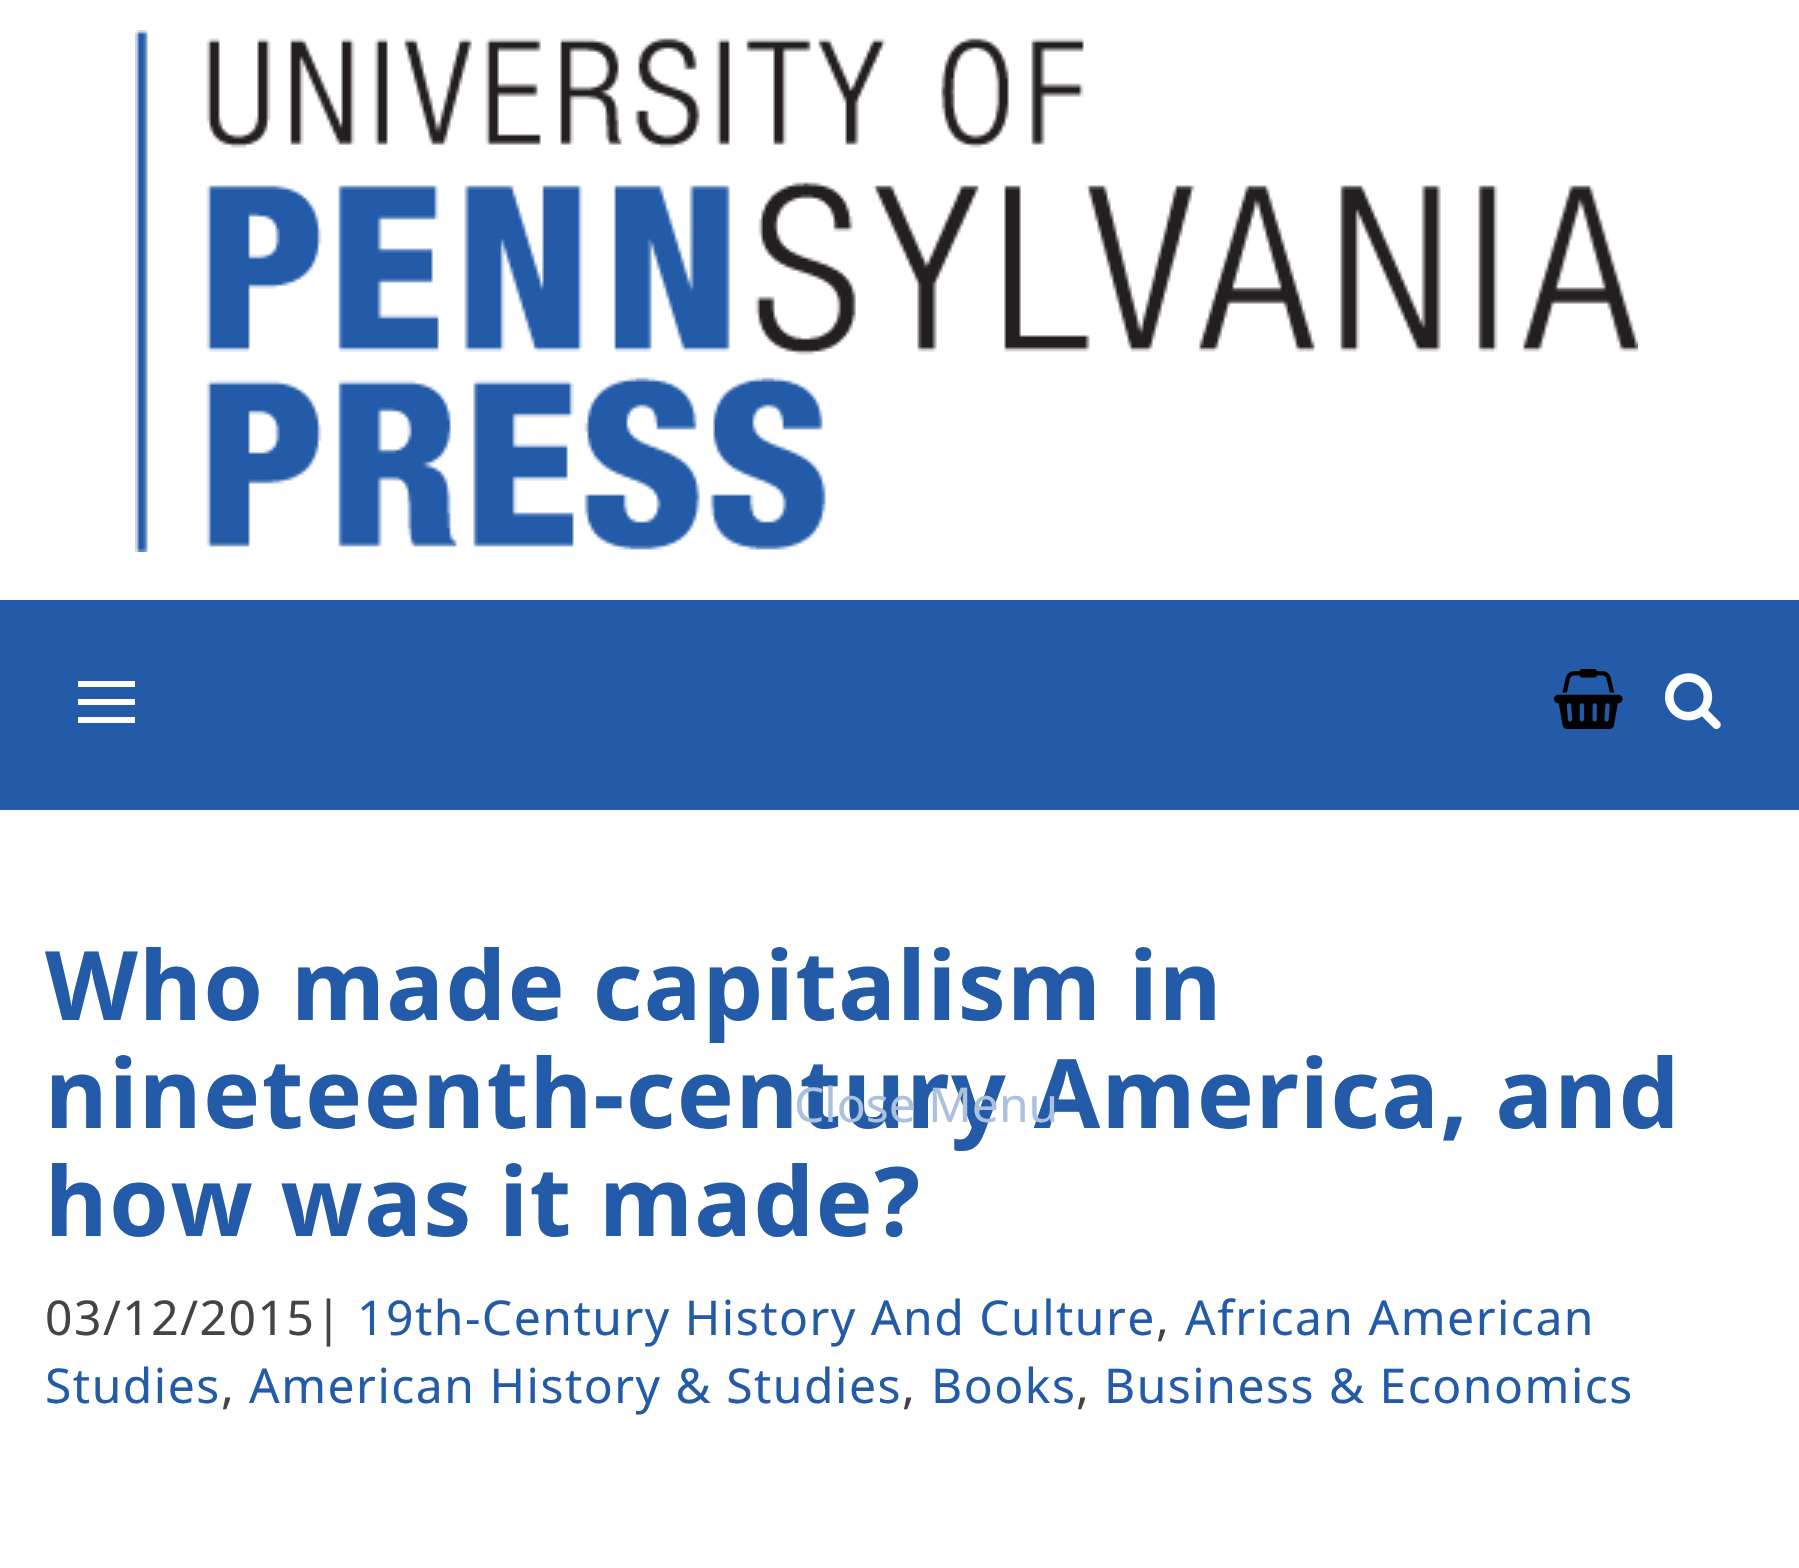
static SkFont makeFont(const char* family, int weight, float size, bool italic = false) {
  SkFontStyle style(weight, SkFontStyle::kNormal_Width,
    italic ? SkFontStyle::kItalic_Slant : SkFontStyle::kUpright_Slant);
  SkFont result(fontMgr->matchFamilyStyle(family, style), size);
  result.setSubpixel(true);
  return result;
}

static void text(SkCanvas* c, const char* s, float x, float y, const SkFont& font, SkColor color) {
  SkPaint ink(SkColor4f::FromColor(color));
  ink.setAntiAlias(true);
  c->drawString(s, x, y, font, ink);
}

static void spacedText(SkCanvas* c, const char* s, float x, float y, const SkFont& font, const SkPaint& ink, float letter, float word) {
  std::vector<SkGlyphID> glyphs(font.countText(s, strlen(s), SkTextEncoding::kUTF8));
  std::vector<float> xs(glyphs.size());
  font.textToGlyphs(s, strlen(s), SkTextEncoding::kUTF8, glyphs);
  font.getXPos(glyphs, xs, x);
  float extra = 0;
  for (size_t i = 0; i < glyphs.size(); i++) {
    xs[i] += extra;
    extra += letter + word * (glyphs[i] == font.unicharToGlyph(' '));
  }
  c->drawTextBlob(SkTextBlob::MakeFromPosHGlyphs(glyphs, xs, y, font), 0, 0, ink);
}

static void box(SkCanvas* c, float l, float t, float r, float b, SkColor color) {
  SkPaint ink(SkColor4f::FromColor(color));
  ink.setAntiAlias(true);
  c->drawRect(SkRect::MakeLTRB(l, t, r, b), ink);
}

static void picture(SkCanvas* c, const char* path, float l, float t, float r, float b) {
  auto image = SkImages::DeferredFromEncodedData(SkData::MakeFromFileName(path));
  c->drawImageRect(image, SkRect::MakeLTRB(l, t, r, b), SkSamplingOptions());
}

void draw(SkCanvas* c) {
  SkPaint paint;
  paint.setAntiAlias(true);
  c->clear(0xffffffff);
  SkFont face1 = makeFont("Noto Sans", 700, 96);
  paint.setColor(0xff235ba8);
  spacedText(c, "Who made capitalism in", 45, 1020, face1, paint, 1.5f, 0);
  spacedText(c, "nineteenth-century America, and", 45, 1128, face1, paint, 1.5f, 0);
  spacedText(c, "how was it made?", 45, 1236, face1, paint, 1.5f, 0);
  SkFont face2 = makeFont("Noto Sans", 400, 48);
  paint.setColor(0xff444444);
  spacedText(c, "03/12/2015|", 45, 1335, face2, paint, 1.5f, 0);
  paint.setColor(0xff235ba8);
  spacedText(c, "19th-Century History And Culture", 357, 1335, face2, paint, 1.5f, 0);
  paint.setColor(0xff444444);
  spacedText(c, ",", 1156, 1335, face2, paint, 1.5f, 0);
  paint.setColor(0xff235ba8);
  spacedText(c, "African American", 1185, 1335, face2, paint, 1.5f, 0);
  spacedText(c, "Studies", 45, 1403, face2, paint, 1.5f, 0);
  paint.setColor(0xff444444);
  spacedText(c, ",", 221, 1403, face2, paint, 1.5f, 0);
  paint.setColor(0xff235ba8);
  spacedText(c, "American History & Studies", 249, 1403, face2, paint, 1.5f, 0);
  paint.setColor(0xff444444);
  spacedText(c, ",", 902, 1403, face2, paint, 1.5f, 0);
  paint.setColor(0xff235ba8);
  spacedText(c, "Books", 931, 1403, face2, paint, 1.5f, 0);
  paint.setColor(0xff444444);
  spacedText(c, ",", 1076, 1403, face2, paint, 1.5f, 0);
  paint.setColor(0xff235ba8);
  spacedText(c, "Business & Economics", 1104, 1403, face2, paint, 1.5f, 0);
  picture(c, "img_01.png", 135, 30, 1638, 552);
  box(c, 0, 600, 1799, 810, 0xff235ba8);
  box(c, 78, 699, 135, 705, 0xffffffff);
  box(c, 78, 681, 135, 687, 0xffffffff);
  box(c, 78, 717, 135, 723, 0xffffffff);
  picture(c, "img_02.png", 1554, 669, 1623, 729);
  picture(c, "img_03.png", 1665, 673, 1721, 729);
  text(c, "Close Menu", 794, 1122, face2, 0xffacc1de);
}
